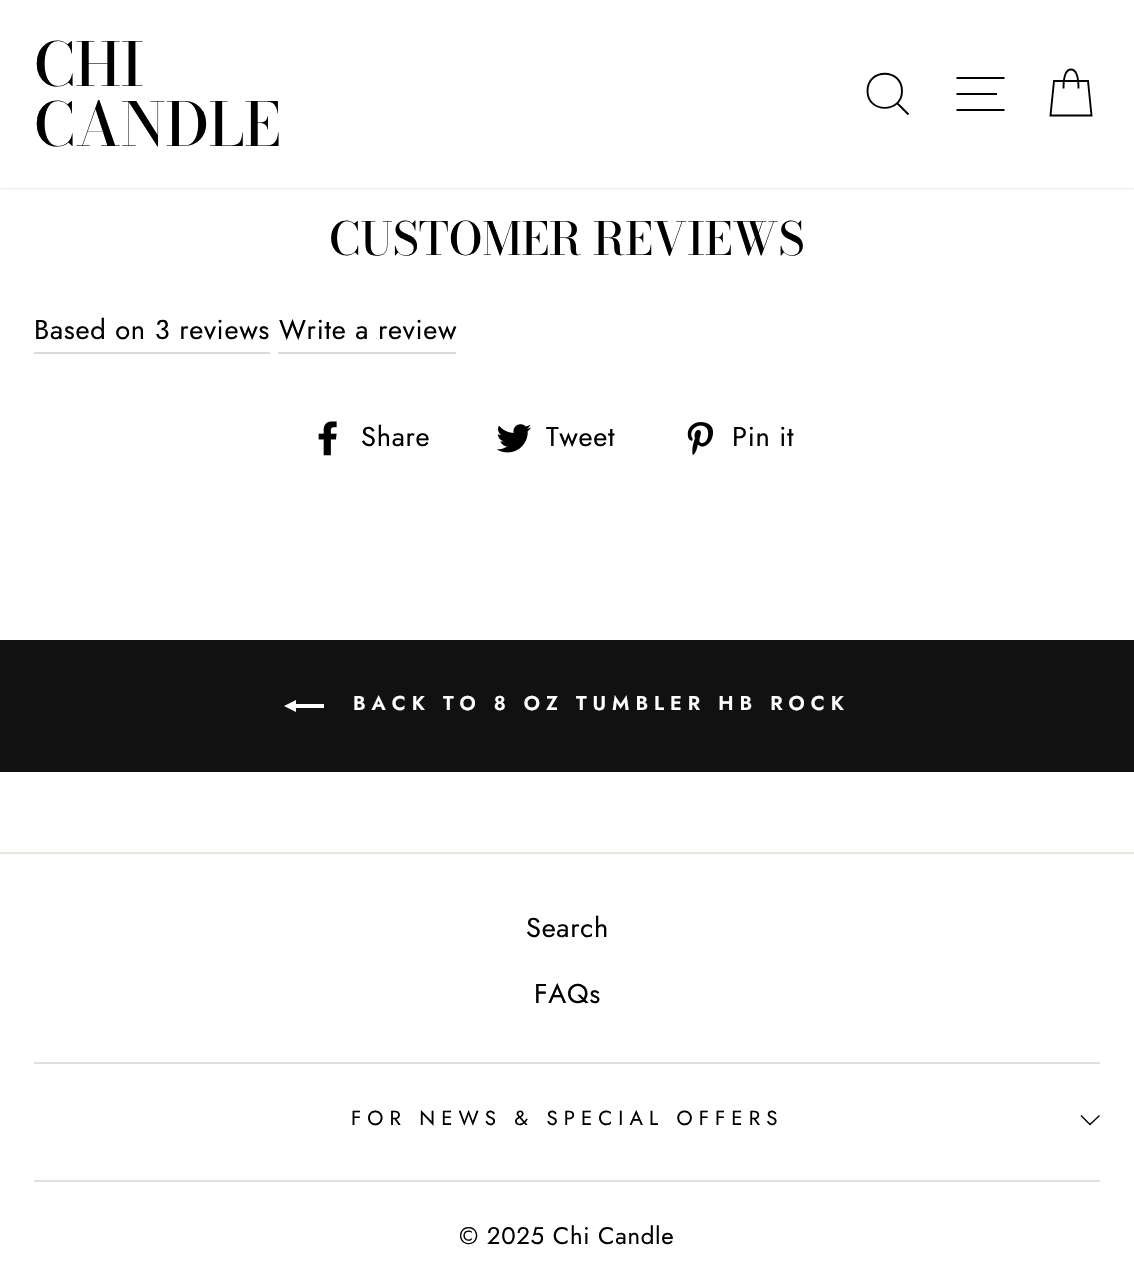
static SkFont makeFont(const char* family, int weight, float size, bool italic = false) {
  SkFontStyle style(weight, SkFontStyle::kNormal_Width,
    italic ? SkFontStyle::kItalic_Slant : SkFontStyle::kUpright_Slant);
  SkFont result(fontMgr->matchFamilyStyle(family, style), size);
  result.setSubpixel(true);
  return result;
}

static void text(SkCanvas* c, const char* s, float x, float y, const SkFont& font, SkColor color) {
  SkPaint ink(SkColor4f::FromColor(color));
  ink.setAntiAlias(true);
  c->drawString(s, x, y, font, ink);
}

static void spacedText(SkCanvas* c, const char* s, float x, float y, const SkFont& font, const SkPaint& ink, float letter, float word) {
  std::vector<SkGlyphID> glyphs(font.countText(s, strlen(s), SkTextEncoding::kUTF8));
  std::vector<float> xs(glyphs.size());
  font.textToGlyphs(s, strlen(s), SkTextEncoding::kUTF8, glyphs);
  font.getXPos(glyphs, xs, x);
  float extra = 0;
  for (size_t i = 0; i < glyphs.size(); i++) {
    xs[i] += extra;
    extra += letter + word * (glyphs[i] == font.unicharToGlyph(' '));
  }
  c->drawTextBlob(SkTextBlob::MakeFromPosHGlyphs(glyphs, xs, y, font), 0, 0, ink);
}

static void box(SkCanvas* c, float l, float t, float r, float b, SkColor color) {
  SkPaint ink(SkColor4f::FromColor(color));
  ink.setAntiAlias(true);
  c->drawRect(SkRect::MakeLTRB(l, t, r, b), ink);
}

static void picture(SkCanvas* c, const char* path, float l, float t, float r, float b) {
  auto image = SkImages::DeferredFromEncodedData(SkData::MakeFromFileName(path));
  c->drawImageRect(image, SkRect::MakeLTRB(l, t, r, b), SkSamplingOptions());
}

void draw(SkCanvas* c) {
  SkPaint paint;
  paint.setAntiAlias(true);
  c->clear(0xffffffff);
  paint.setColor(0x33000000);
  paint.setMaskFilter(SkMaskFilter::MakeBlur(kNormal_SkBlurStyle, 1));
  c->drawRect(SkRect::MakeLTRB(0, 0, 1134, 188), paint);
  paint.setMaskFilter(nullptr);
  box(c, 0, 0, 1134, 188, 0xffffffff);
  SkFont face1 = makeFont("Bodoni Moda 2", 500, 60);
  text(c, "CHI", 34, 86, face1, 0xff000000);
  text(c, "CANDLE", 34, 146, face1, 0xff000000);
  paint.setStyle(SkPaint::kStroke_Style);
  paint.setStrokeWidth(1.9f);
  paint.setColor(0xff000000);
  c->drawPath(SkPathBuilder().moveTo(902, 91).cubicTo(902, 113.5f, 867.5f, 113.5f, 867.5f, 91).cubicTo(867.5f, 68, 902, 68, 902, 91).close().moveTo(908.5f, 114.5f).lineTo(897.5f, 103.5f).detach(), paint);
  c->drawPath(SkPathBuilder().moveTo(956.5f, 78).lineTo(1004.5f, 78).moveTo(956.5f, 94).lineTo(997, 94).moveTo(956.5f, 110).lineTo(1004.5f, 110).detach(), paint);
  c->drawPath(SkPathBuilder().moveTo(1063.5f, 88.5f).cubicTo(1063.5f, 73.5f, 1067, 69.5f, 1071, 69.5f).cubicTo(1075, 69.5f, 1078.5f, 73.5f, 1078.5f, 88.5f).moveTo(1054, 81).lineTo(1088, 81).lineTo(1091.5f, 115.5f).lineTo(1050.5f, 115.5f).close().detach(), paint);
  SkFont face2 = makeFont("Bodoni Moda", 500, 45.25f);
  text(c, "CUSTOMER REVIEWS", 329, 255, face2, 0xff000000);
  box(c, 34, 352, 270, 354, 0xffd9d9d9);
  SkFont face3 = makeFont("Jost", 400, 27.25f);
  paint.setStyle(SkPaint::kFill_Style);
  spacedText(c, "Based on 3 reviews Write a review", 34, 339, face3, paint, 0.7f, 0);
  box(c, 278, 352, 456, 354, 0xffd9d9d9);
  picture(c, "img_01.png", 318, 421, 337, 456);
  spacedText(c, "Share", 361, 446, face3, paint, 0.7f, 0);
  picture(c, "img_02.png", 496, 424, 531, 453);
  spacedText(c, "Tweet", 546, 446, face3, paint, 0.7f, 0);
  picture(c, "img_03.png", 687, 422, 713, 456);
  spacedText(c, "Pin it", 732, 446, face3, paint, 0.7f, 0);
  box(c, 0, 640, 1134, 772, 0xff111111);
  paint.setColor(0xffffffff);
  c->drawPath(SkPathBuilder().moveTo(324, 704).lineTo(324, 708).lineTo(296, 708).lineTo(296, 712).lineTo(284, 706).lineTo(296, 700).lineTo(296, 704).close().detach(), paint);
  SkFont face4 = makeFont("Jost", 600, 20);
  spacedText(c, "BACK TO 8 OZ TUMBLER HB ROCK", 353, 710, face4, paint, 6, 0);
  box(c, 0, 852, 1134, 854, 0xffe8e8e1);
  paint.setColor(0xff000000);
  spacedText(c, "Search", 526, 937, face3, paint, 0.7f, 0);
  spacedText(c, "FAQs", 534, 1003, face3, paint, 0.7f, 0);
  box(c, 34, 1062, 1100, 1064, 0xffe0e0e0);
  SkFont face5 = makeFont("Jost", 400, 20.4f);
  spacedText(c, "FOR NEWS & SPECIAL OFFERS", 351, 1125, face5, paint, 6.1f, 0);
  paint.setStyle(SkPaint::kStroke_Style);
  paint.setStrokeWidth(1.4f);
  c->drawPath(SkPathBuilder().moveTo(1081, 1115.5f).lineTo(1090, 1124.5f).lineTo(1099.5f, 1115.5f).detach(), paint);
  box(c, 34, 1180, 1100, 1182, 0xffe0e0e0);
  SkFont face6 = makeFont("Jost", 400, 24);
  paint.setStyle(SkPaint::kFill_Style);
  spacedText(c, "© 2025 Chi Candle", 459, 1244, face6, paint, 0.7f, 0);
}
